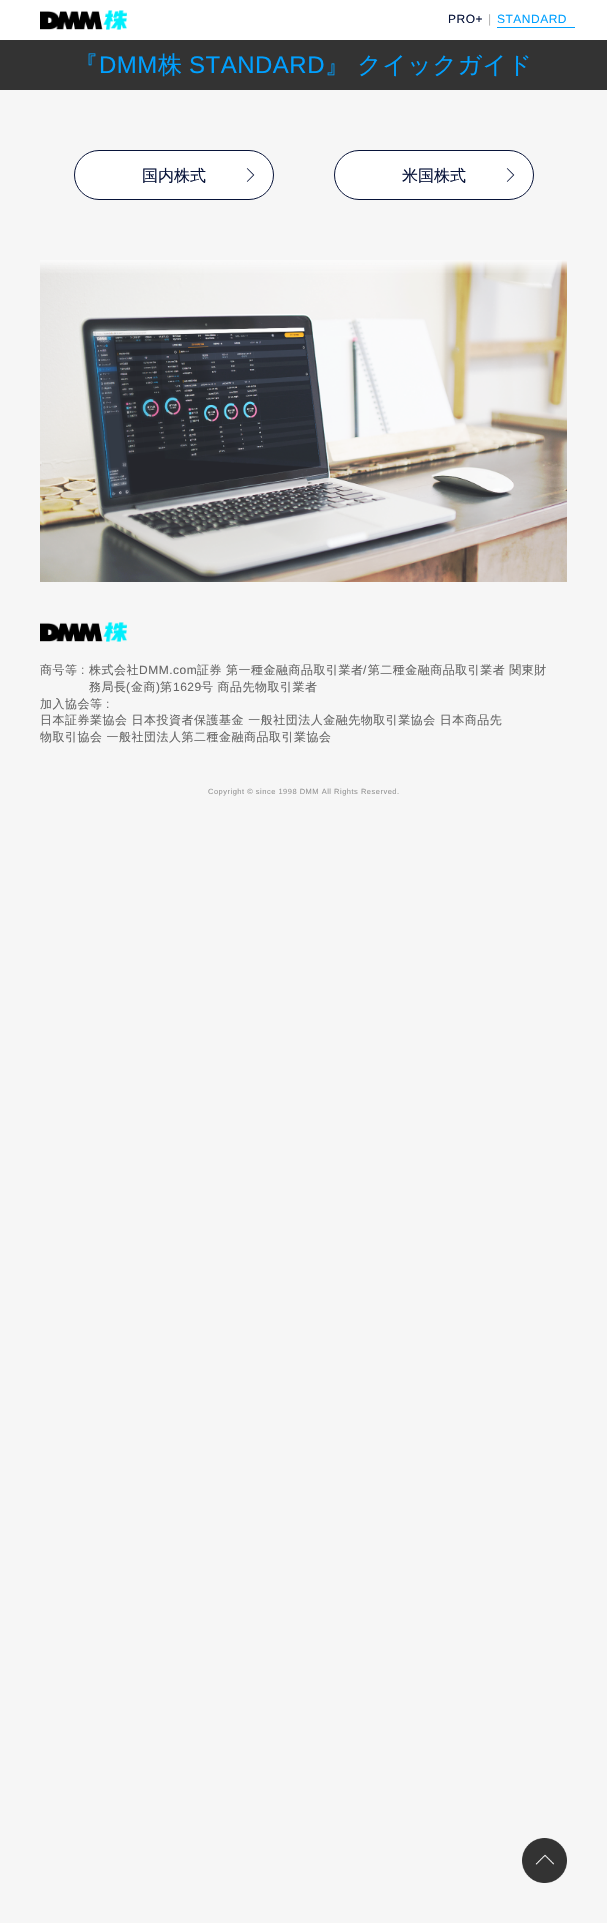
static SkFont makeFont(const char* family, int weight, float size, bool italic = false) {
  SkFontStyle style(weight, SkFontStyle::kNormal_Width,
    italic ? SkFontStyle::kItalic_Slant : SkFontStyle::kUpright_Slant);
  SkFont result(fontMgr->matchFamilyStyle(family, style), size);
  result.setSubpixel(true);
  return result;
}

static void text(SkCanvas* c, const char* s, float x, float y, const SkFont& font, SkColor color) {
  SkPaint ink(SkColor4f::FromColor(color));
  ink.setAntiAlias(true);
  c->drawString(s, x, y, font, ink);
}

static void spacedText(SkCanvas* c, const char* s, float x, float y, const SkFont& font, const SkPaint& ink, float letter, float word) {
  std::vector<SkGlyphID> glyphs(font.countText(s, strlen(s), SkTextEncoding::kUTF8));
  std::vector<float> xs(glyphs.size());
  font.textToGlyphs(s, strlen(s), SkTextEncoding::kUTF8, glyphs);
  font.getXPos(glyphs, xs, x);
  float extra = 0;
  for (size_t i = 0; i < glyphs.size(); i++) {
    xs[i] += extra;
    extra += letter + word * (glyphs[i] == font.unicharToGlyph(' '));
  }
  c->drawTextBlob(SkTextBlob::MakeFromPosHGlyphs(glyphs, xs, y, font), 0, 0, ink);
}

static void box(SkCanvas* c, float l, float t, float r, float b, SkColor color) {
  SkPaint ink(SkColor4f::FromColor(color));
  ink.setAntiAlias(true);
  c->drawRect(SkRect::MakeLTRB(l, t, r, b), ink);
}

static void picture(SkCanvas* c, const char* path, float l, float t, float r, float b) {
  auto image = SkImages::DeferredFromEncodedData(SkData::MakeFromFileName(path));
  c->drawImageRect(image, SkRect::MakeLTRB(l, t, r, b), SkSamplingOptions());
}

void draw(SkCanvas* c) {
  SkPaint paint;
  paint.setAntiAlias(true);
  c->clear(0xfff6f6f6);
  box(c, 0, 0, 607, 40, 0xffffffff);
  picture(c, "img_01.png", 40, 10, 127, 30);
  SkFont face1 = makeFont("Liberation Sans", 400, 12);
  paint.setColor(0xff071339);
  spacedText(c, "PRO+", 448, 23, face1, paint, 0.5f, 0);
  paint.setColor(0xffb6b6b6);
  spacedText(c, "|", 488, 23, face1, paint, 0.5f, 0);
  paint.setColor(0xff00a0ff);
  spacedText(c, "STANDARD", 497, 23, face1, paint, 0.5f, 0);
  box(c, 497, 27, 575, 28, 0xff00a0ff);
  box(c, 0, 40, 607, 90, 0xff333333);
  SkFont face2 = makeFont("WenQuanYi Zen Hei", 500, 24);
  spacedText(c, "『", 74, 73, face2, paint, 0.5f, 0);
  SkFont face3 = makeFont("Liberation Sans", 400, 24);
  spacedText(c, "DMM", 99, 73, face3, paint, 0.5f, 0);
  spacedText(c, "株", 158, 73, face2, paint, 0.5f, 0);
  spacedText(c, "STANDARD", 189, 73, face3, paint, 0.5f, 0);
  spacedText(c, "』 クイックガイド", 325, 73, face2, paint, 0.5f, 0);
  paint.setColor(0xffffffff);
  c->drawRoundRect(SkRect::MakeLTRB(74.5f, 150.5f, 273.5f, 199.5f), 24.5f, 24.5f, paint);
  paint.setStyle(SkPaint::kStroke_Style);
  paint.setStrokeWidth(1);
  paint.setColor(0xff071339);
  c->drawRoundRect(SkRect::MakeLTRB(74.5f, 150.5f, 273.5f, 199.5f), 24.5f, 24.5f, paint);
  SkFont face4 = makeFont("WenQuanYi Zen Hei", 500, 16);
  text(c, "国内株式", 142, 181, face4, 0xff071339);
  picture(c, "img_02.png", 246, 168, 255, 182);
  paint.setStyle(SkPaint::kFill_Style);
  paint.setColor(0xffffffff);
  c->drawRoundRect(SkRect::MakeLTRB(334.5f, 150.5f, 533.5f, 199.5f), 24.5f, 24.5f, paint);
  paint.setStyle(SkPaint::kStroke_Style);
  paint.setColor(0xff071339);
  c->drawRoundRect(SkRect::MakeLTRB(334.5f, 150.5f, 533.5f, 199.5f), 24.5f, 24.5f, paint);
  text(c, "米国株式", 402, 181, face4, 0xff071339);
  picture(c, "img_02.png", 506, 168, 515, 182);
  picture(c, "img_03.png", 40, 260, 567, 582);
  picture(c, "img_04.png", 40, 622, 127, 642);
  SkFont face5 = makeFont("WenQuanYi Zen Hei", 500, 12);
  paint.setStyle(SkPaint::kFill_Style);
  paint.setColor(0xff666666);
  spacedText(c, "商号等", 40, 674, face5, paint, 0.5f, 0);
  spacedText(c, ":", 81, 674, face1, paint, 0.5f, 0);
  spacedText(c, "株式会社", 89, 674, face5, paint, 0.5f, 0);
  spacedText(c, "DMM.com", 139, 674, face1, paint, 0.5f, 0);
  spacedText(c, "証券 第一種金融商品取引業者 第二種金融商品取引業者 関東財", 197, 674, face5, paint, 0.5f, 0);
  spacedText(c, "/", 363, 674, face1, paint, 0.5f, 0);
  spacedText(c, "務局長", 89, 691, face5, paint, 0.5f, 0);
  spacedText(c, "(", 126, 691, face1, paint, 0.5f, 0);
  spacedText(c, "金商", 131, 691, face5, paint, 0.5f, 0);
  spacedText(c, ")", 156, 691, face1, paint, 0.5f, 0);
  spacedText(c, "第", 160, 691, face5, paint, 0.5f, 0);
  spacedText(c, "1629", 173, 691, face1, paint, 0.5f, 0);
  spacedText(c, "号 商品先物取引業者", 201, 691, face5, paint, 0.5f, 0);
  spacedText(c, "加入協会等", 40, 708, face5, paint, 0.5f, 0);
  spacedText(c, ":", 106, 708, face1, paint, 0.5f, 0);
  spacedText(c, "日本証券業協会 日本投資者保護基金 一般社団法人金融先物取引業協会 日本商品先", 40, 724, face5, paint, 0.5f, 0);
  spacedText(c, "物取引協会 一般社団法人第二種金融商品取引業協会", 40, 741, face5, paint, 0.5f, 0);
  SkFont face6 = makeFont("Liberation Sans", 400, 7.5f);
  paint.setColor(0xff969696);
  spacedText(c, "Copyright © since 1998 DMM All Rights Reserved.", 208, 794, face6, paint, 0.5f, 0);
  picture(c, "img_05.png", 522, 1838, 567, 1883);
}
